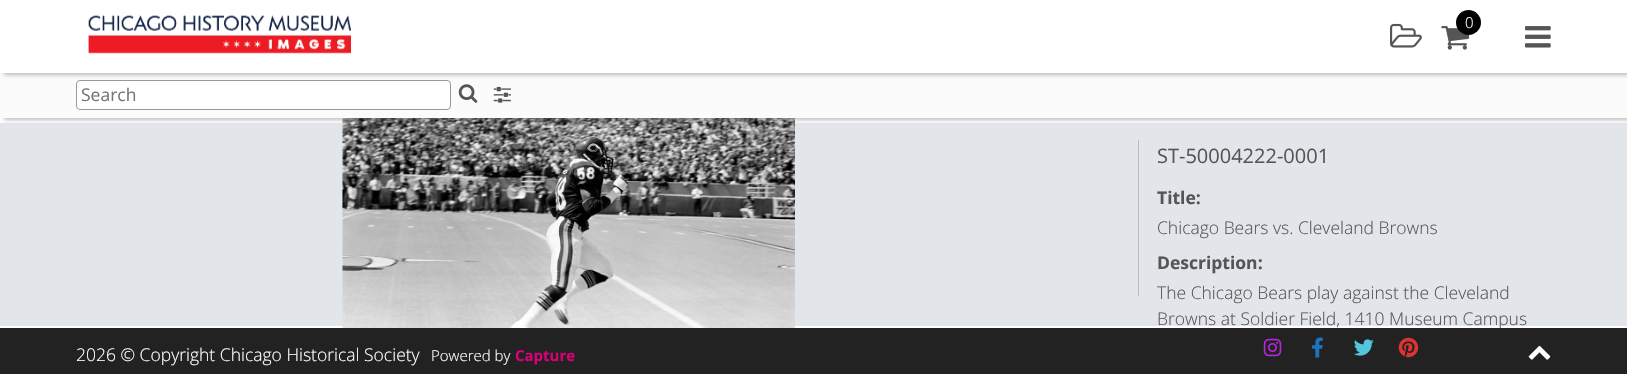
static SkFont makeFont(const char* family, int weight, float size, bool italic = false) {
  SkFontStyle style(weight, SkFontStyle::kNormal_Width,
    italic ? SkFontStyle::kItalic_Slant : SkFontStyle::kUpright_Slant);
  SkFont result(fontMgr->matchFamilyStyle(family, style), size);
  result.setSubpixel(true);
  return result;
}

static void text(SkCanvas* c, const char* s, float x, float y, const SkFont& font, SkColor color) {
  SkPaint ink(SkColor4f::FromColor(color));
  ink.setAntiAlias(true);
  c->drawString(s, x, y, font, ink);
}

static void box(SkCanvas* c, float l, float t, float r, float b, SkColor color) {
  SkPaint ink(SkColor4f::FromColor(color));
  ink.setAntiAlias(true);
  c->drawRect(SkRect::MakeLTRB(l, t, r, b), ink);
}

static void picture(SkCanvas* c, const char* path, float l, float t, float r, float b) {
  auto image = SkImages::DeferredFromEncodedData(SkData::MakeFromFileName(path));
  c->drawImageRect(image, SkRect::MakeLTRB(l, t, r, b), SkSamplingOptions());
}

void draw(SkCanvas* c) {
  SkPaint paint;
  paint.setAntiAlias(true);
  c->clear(0xffffffff);
  box(c, 0, 123, 1627, 326, 0xffe2e5e9);
  picture(c, "img_07.png", 342, 118, 795, 328);
  paint.setColor(0x594a4545);
  paint.setMaskFilter(SkMaskFilter::MakeBlur(kNormal_SkBlurStyle, 2));
  c->drawRect(SkRect::MakeLTRB(4, 75, 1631, 120), paint);
  paint.setMaskFilter(nullptr);
  box(c, 0, 73, 1627, 118, 0xfffbfbfb);
  paint.setColor(0xffffffff);
  c->drawRoundRect(SkRect::MakeLTRB(76.5f, 80.5f, 450.5f, 109.5f), 3.5f, 3.5f, paint);
  paint.setStyle(SkPaint::kStroke_Style);
  paint.setStrokeWidth(1);
  paint.setColor(0xff999999);
  c->drawRoundRect(SkRect::MakeLTRB(76.5f, 80.5f, 450.5f, 109.5f), 3.5f, 3.5f, paint);
  paint.setStyle(SkPaint::kFill_Style);
  paint.setColor(0x594a4545);
  paint.setMaskFilter(SkMaskFilter::MakeBlur(kNormal_SkBlurStyle, 2));
  c->drawRect(SkRect::MakeLTRB(4, 3, 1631, 75), paint);
  paint.setMaskFilter(nullptr);
  box(c, 1, 0, 1627, 73, 0xffffffff);
  picture(c, "img_01.png", 88, 15, 351, 54);
  picture(c, "img_02.png", 1390, 23, 1422, 48);
  picture(c, "img_03.png", 1441, 26, 1470, 50);
  paint.setColor(0xff000000);
  c->drawCircle(1468.5f, 22.5f, 12.5f, paint);
  SkFont face1 = makeFont("Open Sans", 300, 15);
  text(c, "0", 1465, 28, face1, 0xffffffff);
  picture(c, "img_04.png", 1525, 26, 1551, 48);
  SkFont face2 = makeFont("Open Sans", 400, 17.5f);
  text(c, "Search", 81, 101, face2, 0xff757575);
  picture(c, "img_05.png", 458, 84, 478, 103);
  picture(c, "img_06.png", 493, 86, 511, 103);
  box(c, 1138, 140, 1139, 296, 0xffb7bdc8);
  SkFont face3 = makeFont("Open Sans", 400, 20);
  text(c, "ST-50004222-0001", 1157, 163, face3, 0xff555555);
  SkFont face4 = makeFont("Open Sans", 700, 17.5f);
  text(c, "Title:", 1157, 204, face4, 0xff555555);
  SkFont face5 = makeFont("Open Sans", 300, 17.5f);
  text(c, "Chicago Bears vs. Cleveland Browns", 1157, 234, face5, 0xff555555);
  text(c, "Description:", 1157, 269, face4, 0xff555555);
  text(c, "The Chicago Bears play against the Cleveland", 1157, 299, face5, 0xff555555);
  text(c, "Browns at Soldier Field, 1410 Museum Campus", 1157, 325, face5, 0xff555555);
  box(c, 0, 328, 1627, 374, 0xff222222);
  text(c, "2026 © Copyright Chicago Historical Society", 76, 361, face5, 0xffffffff);
  text(c, "Powered by", 431, 361, face1, 0xffffffff);
  SkFont face6 = makeFont("Open Sans", 700, 15);
  text(c, "Capture", 515, 361, face6, 0xffdb0074);
  picture(c, "img_08.png", 1263, 338, 1282, 357);
  picture(c, "img_09.png", 1312, 337, 1323, 358);
  picture(c, "img_10.png", 1354, 339, 1374, 356);
  picture(c, "img_11.png", 1398, 337, 1419, 358);
  picture(c, "img_12.png", 1528, 345, 1551, 360);
}
